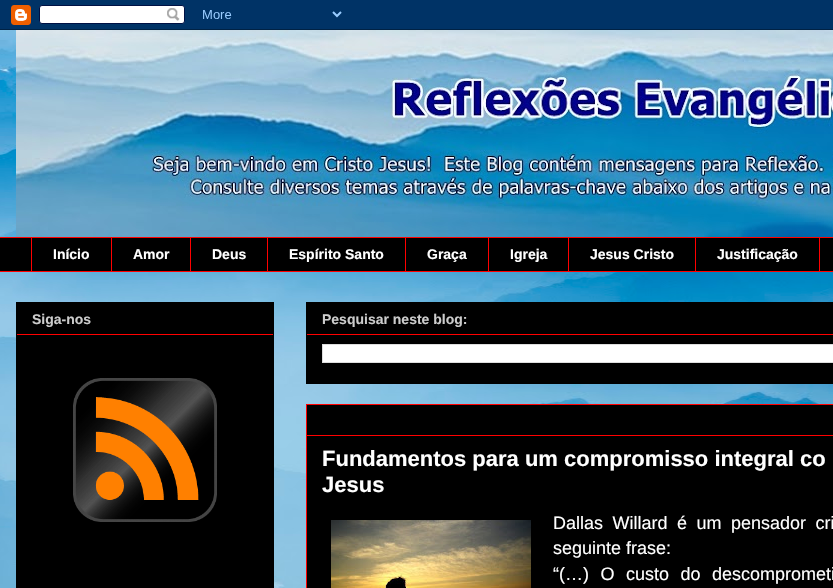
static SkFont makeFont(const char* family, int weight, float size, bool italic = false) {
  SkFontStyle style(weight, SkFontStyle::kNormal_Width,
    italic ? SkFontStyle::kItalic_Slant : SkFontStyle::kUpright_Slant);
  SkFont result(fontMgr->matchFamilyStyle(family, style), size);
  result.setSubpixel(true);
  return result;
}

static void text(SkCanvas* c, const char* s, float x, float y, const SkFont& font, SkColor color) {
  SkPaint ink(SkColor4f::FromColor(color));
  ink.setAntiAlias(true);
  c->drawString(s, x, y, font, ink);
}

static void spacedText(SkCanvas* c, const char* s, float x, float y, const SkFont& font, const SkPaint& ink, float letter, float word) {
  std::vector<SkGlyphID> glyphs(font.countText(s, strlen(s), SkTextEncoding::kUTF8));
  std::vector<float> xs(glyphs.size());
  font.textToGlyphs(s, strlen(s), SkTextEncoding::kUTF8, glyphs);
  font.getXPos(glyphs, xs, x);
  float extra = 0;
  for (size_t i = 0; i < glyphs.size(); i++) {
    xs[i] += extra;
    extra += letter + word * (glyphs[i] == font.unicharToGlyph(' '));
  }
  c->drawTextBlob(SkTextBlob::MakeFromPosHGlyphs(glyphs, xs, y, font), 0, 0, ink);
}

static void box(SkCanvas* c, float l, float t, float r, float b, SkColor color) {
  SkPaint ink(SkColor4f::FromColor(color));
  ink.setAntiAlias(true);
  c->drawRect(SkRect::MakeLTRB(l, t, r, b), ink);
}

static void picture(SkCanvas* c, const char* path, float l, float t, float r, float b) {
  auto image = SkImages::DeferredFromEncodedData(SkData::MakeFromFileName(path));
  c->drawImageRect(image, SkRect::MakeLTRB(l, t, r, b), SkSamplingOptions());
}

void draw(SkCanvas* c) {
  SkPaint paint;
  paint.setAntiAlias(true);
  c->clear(0xffffffff);
  picture(c, "img_01.png", 0, 30, 833, 588);
  picture(c, "img_02.png", 0, 0, 833, 30);
  picture(c, "img_03.png", 16, 30, 833, 237);
  box(c, 0, 238, 833, 271, 0xff000000);
  box(c, 0, 237, 833, 238, 0xffff0000);
  box(c, 31, 237, 32, 272, 0xffff0000);
  SkFont face1 = makeFont("Liberation Sans", 700, 14);
  text(c, "Início", 53, 259, face1, 0xffffffff);
  box(c, 111, 237, 112, 272, 0xffff0000);
  text(c, "Amor", 133, 259, face1, 0xffffffff);
  box(c, 190, 237, 191, 272, 0xffff0000);
  text(c, "Deus", 212, 259, face1, 0xffffffff);
  box(c, 267, 237, 268, 272, 0xffff0000);
  text(c, "Espírito Santo", 289, 259, face1, 0xffffffff);
  box(c, 405, 237, 406, 272, 0xffff0000);
  text(c, "Graça", 427, 259, face1, 0xffffffff);
  box(c, 488, 237, 489, 272, 0xffff0000);
  text(c, "Igreja", 510, 259, face1, 0xffffffff);
  box(c, 568, 237, 569, 272, 0xffff0000);
  text(c, "Jesus Cristo", 590, 259, face1, 0xffffffff);
  box(c, 695, 237, 696, 272, 0xffff0000);
  text(c, "Justificação", 717, 259, face1, 0xffffffff);
  box(c, 819, 237, 820, 272, 0xffff0000);
  box(c, 0, 271, 833, 272, 0xffff0000);
  box(c, 16, 302, 274, 588, 0xff000000);
  box(c, 17, 334, 273, 335, 0xffff0000);
  text(c, "Siga-nos", 32, 324, face1, 0xffcccccc);
  picture(c, "img_04.png", 73, 378, 217, 522);
  box(c, 306, 302, 833, 384, 0xff000000);
  box(c, 307, 334, 833, 335, 0xffff0000);
  text(c, "Pesquisar neste blog:", 322, 324, face1, 0xffcccccc);
  paint.setColor(0xffffffff);
  c->drawRect(SkRect::MakeLTRB(322.5f, 344.5f, 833.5f, 362.5f), paint);
  paint.setStyle(SkPaint::kStroke_Style);
  paint.setStrokeWidth(1);
  paint.setColor(0xffdddddd);
  c->drawRect(SkRect::MakeLTRB(322.5f, 344.5f, 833.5f, 362.5f), paint);
  paint.setStyle(SkPaint::kFill_Style);
  paint.setColor(0xff000000);
  c->drawRect(SkRect::MakeLTRB(306.5f, 404.5f, 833.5f, 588.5f), paint);
  paint.setStyle(SkPaint::kStroke_Style);
  paint.setColor(0xffff0000);
  c->drawRect(SkRect::MakeLTRB(306.5f, 404.5f, 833.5f, 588.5f), paint);
  box(c, 307, 435, 833, 436, 0xffff0000);
  SkFont face2 = makeFont("Liberation Sans", 700, 22);
  text(c, "Fundamentos para um compromisso integral co", 322, 466, face2, 0xffffffff);
  text(c, "Jesus", 322, 492, face2, 0xffffffff);
  picture(c, "img_05.png", 331, 520, 531, 588);
  SkFont face3 = makeFont("Liberation Sans", 400, 18);
  paint.setStyle(SkPaint::kFill_Style);
  paint.setColor(0xffffffff);
  spacedText(c, "Dallas Willard é um pensador cri", 553, 529, face3, paint, 0, 4.5f);
  text(c, "seguinte frase:", 553, 554, face3, 0xffffffff);
  spacedText(c, "“(…) O custo do descomprometi", 553, 580, face3, paint, 0, 6.5f);
}
